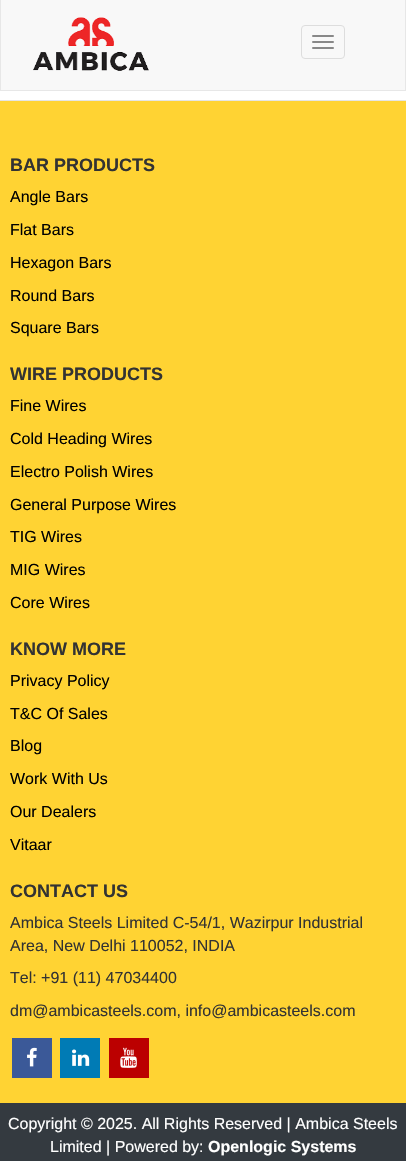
static SkFont makeFont(const char* family, int weight, float size, bool italic = false) {
  SkFontStyle style(weight, SkFontStyle::kNormal_Width,
    italic ? SkFontStyle::kItalic_Slant : SkFontStyle::kUpright_Slant);
  SkFont result(fontMgr->matchFamilyStyle(family, style), size);
  result.setSubpixel(true);
  return result;
}

static void text(SkCanvas* c, const char* s, float x, float y, const SkFont& font, SkColor color) {
  SkPaint ink(SkColor4f::FromColor(color));
  ink.setAntiAlias(true);
  c->drawString(s, x, y, font, ink);
}

static void box(SkCanvas* c, float l, float t, float r, float b, SkColor color) {
  SkPaint ink(SkColor4f::FromColor(color));
  ink.setAntiAlias(true);
  c->drawRect(SkRect::MakeLTRB(l, t, r, b), ink);
}

static void roundBox(SkCanvas* c, float l, float t, float r, float b, float radius, SkColor color) {
  SkPaint ink(SkColor4f::FromColor(color));
  ink.setAntiAlias(true);
  c->drawRoundRect(SkRect::MakeLTRB(l, t, r, b), radius, radius, ink);
}

static void picture(SkCanvas* c, const char* path, float l, float t, float r, float b) {
  auto image = SkImages::DeferredFromEncodedData(SkData::MakeFromFileName(path));
  c->drawImageRect(image, SkRect::MakeLTRB(l, t, r, b), SkSamplingOptions());
}

void draw(SkCanvas* c) {
  SkPaint paint;
  paint.setAntiAlias(true);
  c->clear(0xffffffff);
  box(c, 1, 0, 405, 90, 0xfff8f8f8);
  box(c, 405, 0, 406, 91, 0xffe7e7e7);
  box(c, 0, 90, 406, 91, 0xffe7e7e7);
  box(c, 0, 0, 1, 91, 0xffe7e7e7);
  picture(c, "img_01.png", 33, 17, 149, 71);
  paint.setStyle(SkPaint::kStroke_Style);
  paint.setStrokeWidth(1);
  paint.setColor(0xffdddddd);
  c->drawRoundRect(SkRect::MakeLTRB(301.5f, 25.5f, 344.5f, 58.5f), 3.5f, 3.5f, paint);
  roundBox(c, 312, 35, 334, 37, 1, 0xff888888);
  roundBox(c, 312, 41, 334, 43, 1, 0xff888888);
  roundBox(c, 312, 47, 334, 49, 1, 0xff888888);
  box(c, 0, 101, 406, 1103, 0xffffd333);
  box(c, 0, 100, 406, 101, 0xffe5e5e5);
  SkFont face1 = makeFont("Liberation Sans", 700, 18);
  text(c, "BAR PRODUCTS", 10, 171, face1, 0xff333333);
  SkFont face2 = makeFont("Liberation Sans", 400, 16);
  text(c, "Angle Bars", 10, 202, face2, 0xff000000);
  text(c, "Flat Bars", 10, 235, face2, 0xff000000);
  text(c, "Hexagon Bars", 10, 268, face2, 0xff000000);
  text(c, "Round Bars", 10, 301, face2, 0xff000000);
  text(c, "Square Bars", 10, 333, face2, 0xff000000);
  text(c, "WIRE PRODUCTS", 10, 380, face1, 0xff333333);
  text(c, "Fine Wires", 10, 411, face2, 0xff000000);
  text(c, "Cold Heading Wires", 10, 444, face2, 0xff000000);
  text(c, "Electro Polish Wires", 10, 477, face2, 0xff000000);
  text(c, "General Purpose Wires", 10, 510, face2, 0xff000000);
  text(c, "TIG Wires", 10, 542, face2, 0xff000000);
  text(c, "MIG Wires", 10, 575, face2, 0xff000000);
  text(c, "Core Wires", 10, 608, face2, 0xff000000);
  text(c, "KNOW MORE", 10, 655, face1, 0xff333333);
  text(c, "Privacy Policy", 10, 686, face2, 0xff000000);
  text(c, "T&C Of Sales", 10, 719, face2, 0xff000000);
  text(c, "Blog", 10, 751, face2, 0xff000000);
  text(c, "Work With Us", 10, 784, face2, 0xff000000);
  text(c, "Our Dealers", 10, 817, face2, 0xff000000);
  text(c, "Vitaar", 10, 850, face2, 0xff000000);
  text(c, "CONTACT US", 10, 897, face1, 0xff333333);
  text(c, "Ambica Steels Limited C-54/1, Wazirpur Industrial", 10, 928, face2, 0xff333333);
  text(c, "Area, New Delhi 110052, INDIA", 10, 951, face2, 0xff333333);
  text(c, "Tel: +91 (11) 47034400", 10, 983, face2, 0xff333333);
  text(c, "dm@ambicasteels.com, info@ambicasteels.com", 10, 1016, face2, 0xff333333);
  box(c, 12, 1038, 52, 1078, 0xff3b5998);
  picture(c, "img_02.png", 27, 1047, 37, 1067);
  box(c, 60, 1038, 100, 1078, 0xff007bb5);
  picture(c, "img_03.png", 72, 1049, 90, 1066);
  box(c, 109, 1038, 149, 1078, 0xffbb0000);
  picture(c, "img_04.png", 120, 1047, 137, 1068);
  box(c, 0, 1103, 406, 1161, 0xff343a40);
  text(c, "Copyright © 2025. All Rights Reserved | Ambica Steels", 8, 1129, face2, 0xffffffff);
  text(c, "Limited | Powered by:", 50, 1152, face2, 0xffffffff);
  SkFont face3 = makeFont("Liberation Sans", 700, 16);
  text(c, "Openlogic Systems", 208, 1152, face3, 0xffffffff);
}
